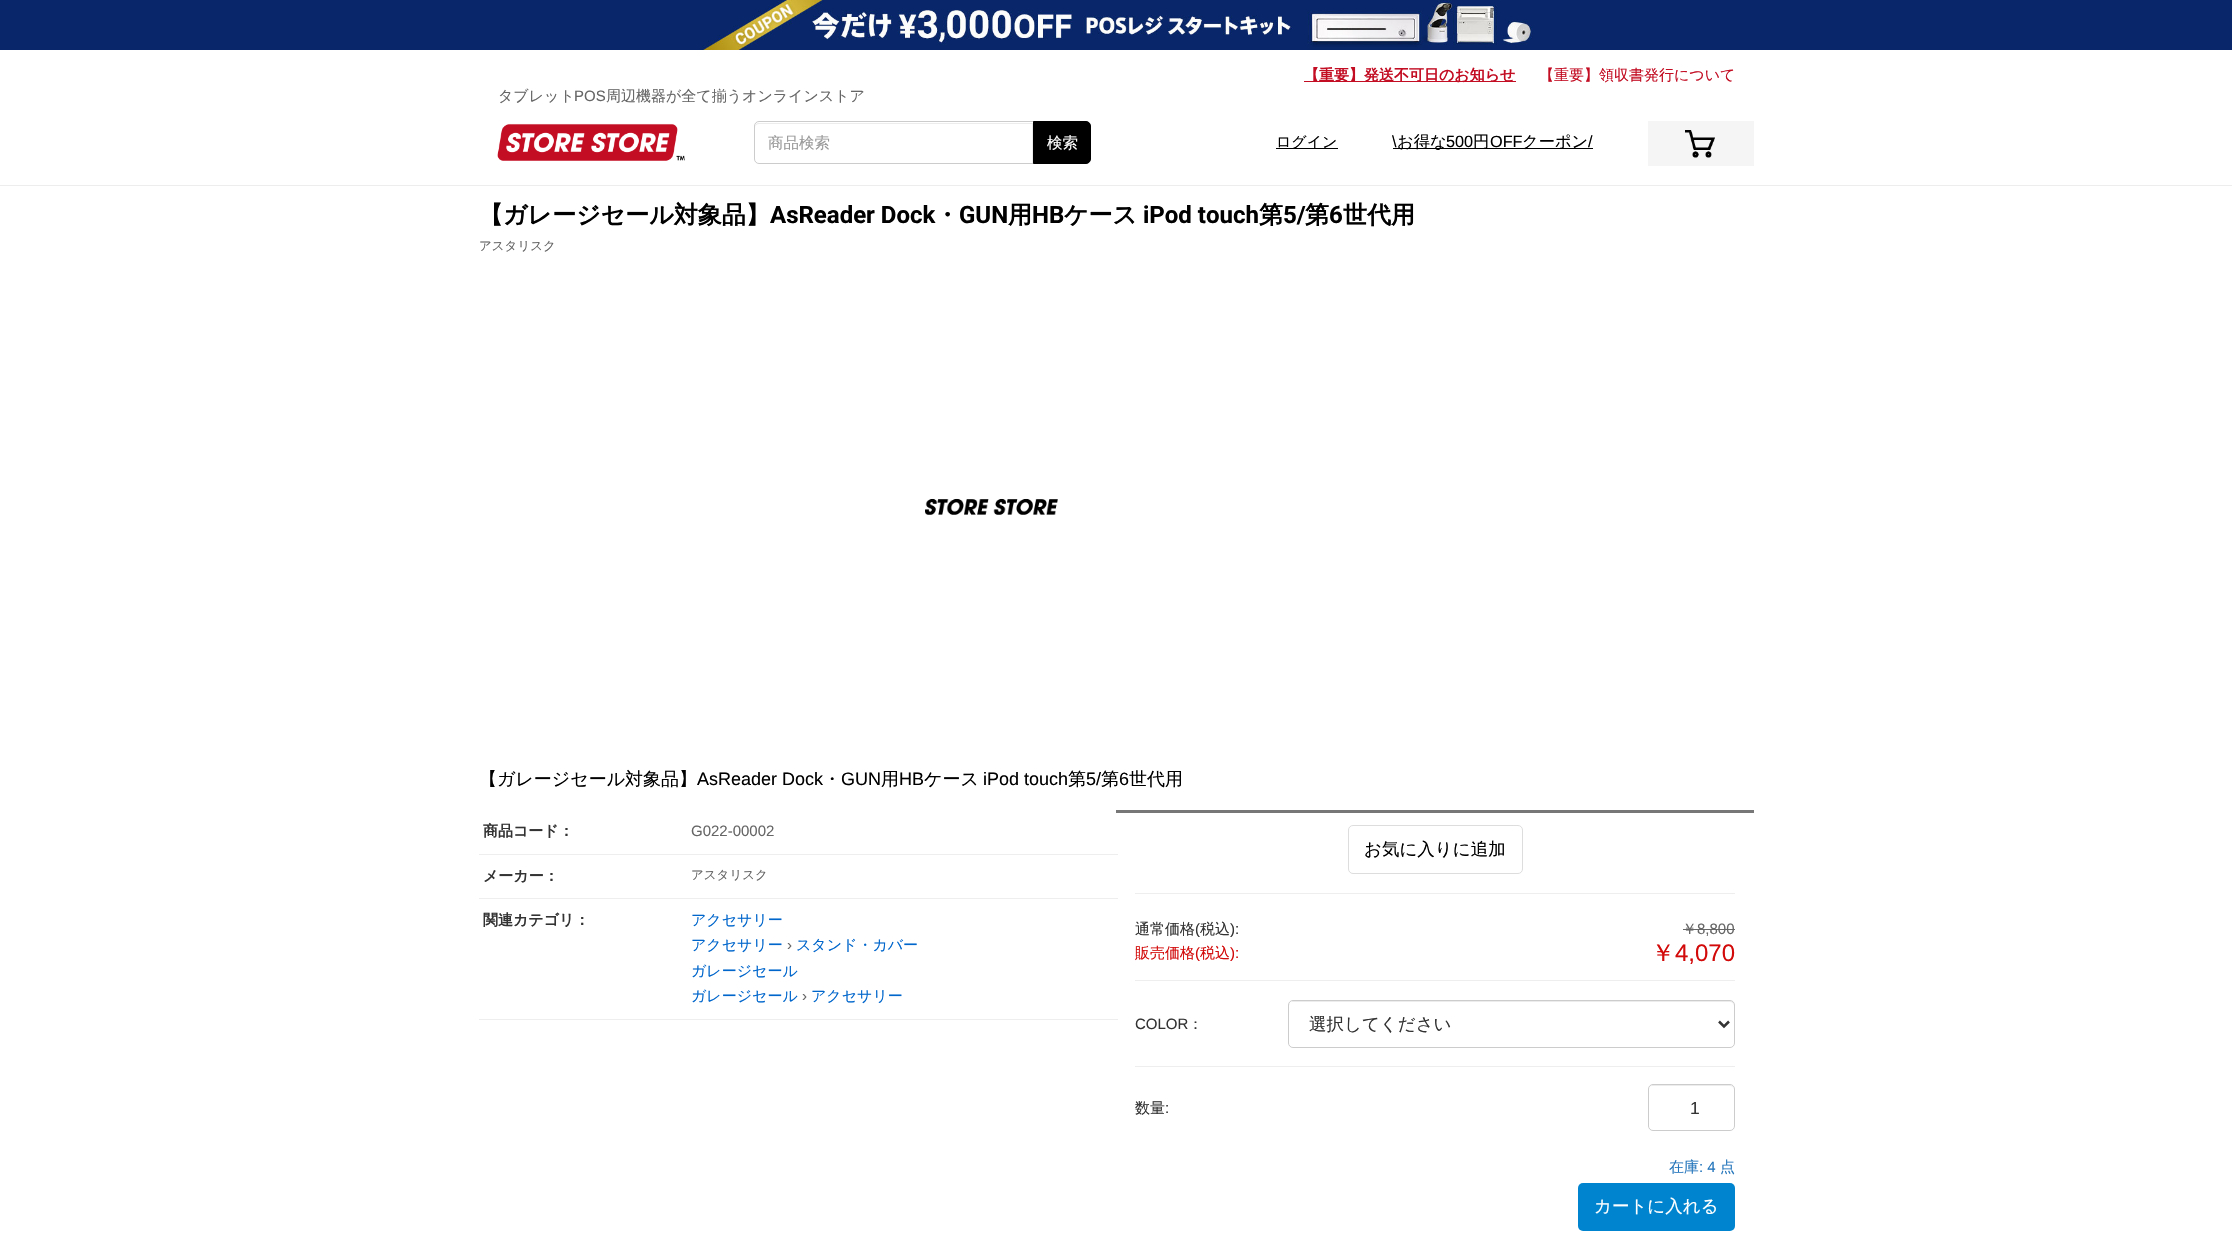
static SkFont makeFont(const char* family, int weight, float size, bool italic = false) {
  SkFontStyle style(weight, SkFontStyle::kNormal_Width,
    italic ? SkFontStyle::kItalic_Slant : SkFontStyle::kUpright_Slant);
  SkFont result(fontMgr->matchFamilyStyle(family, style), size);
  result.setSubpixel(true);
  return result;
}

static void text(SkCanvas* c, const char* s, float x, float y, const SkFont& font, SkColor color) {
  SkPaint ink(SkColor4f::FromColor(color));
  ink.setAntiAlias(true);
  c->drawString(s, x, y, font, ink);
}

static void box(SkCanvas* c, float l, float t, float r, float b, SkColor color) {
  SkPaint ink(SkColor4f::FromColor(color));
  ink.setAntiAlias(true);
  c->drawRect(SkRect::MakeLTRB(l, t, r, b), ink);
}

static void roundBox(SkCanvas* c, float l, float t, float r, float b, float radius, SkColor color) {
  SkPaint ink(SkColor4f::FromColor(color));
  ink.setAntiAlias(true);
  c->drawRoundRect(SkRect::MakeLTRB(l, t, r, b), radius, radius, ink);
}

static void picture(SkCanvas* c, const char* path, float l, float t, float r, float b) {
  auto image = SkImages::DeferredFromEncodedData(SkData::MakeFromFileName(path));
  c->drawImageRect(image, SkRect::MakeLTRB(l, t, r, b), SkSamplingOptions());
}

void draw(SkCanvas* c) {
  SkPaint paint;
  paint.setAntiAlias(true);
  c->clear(0xffffffff);
  box(c, 0, 0, 2232, 50, 0xff09266a);
  picture(c, "img_01.png", 702, 0, 1533, 50);
  box(c, 1304, 81, 1516, 82, 0xffc30d23);
  SkFont face1 = makeFont("WenQuanYi Zen Hei", 700, 15);
  text(c, "【重要】発送不可日のお知らせ", 1304, 80, face1, 0xffc30d23);
  SkFont face2 = makeFont("WenQuanYi Zen Hei", 500, 15);
  text(c, "【重要】領収書発行について", 1539, 80, face2, 0xffc30d23);
  text(c, "タブレット", 498, 101, face2, 0xff666666);
  SkFont face3 = makeFont("Liberation Sans", 400, 15);
  text(c, "POS", 574, 101, face3, 0xff666666);
  text(c, "周辺機器が全て揃うオンラインストア", 606, 101, face2, 0xff666666);
  picture(c, "img_02.png", 497, 123, 685, 161);
  paint.setColor(0xffececec);
  c->drawPath(SkPathBuilder().moveTo(759, 124).lineTo(1032, 124).lineTo(1032, 163).lineTo(1033, 163).lineTo(1033, 123).lineTo(759, 123).cubicTo(756, 123, 755, 125, 755, 128).cubicTo(755, 125, 757, 124, 759, 124).close().detach(), paint);
  paint.setStyle(SkPaint::kStroke_Style);
  paint.setStrokeWidth(1);
  paint.setColor(0xffcccccc);
  c->drawPath(SkPathBuilder().moveTo(759, 121.5f).lineTo(1033.5f, 121.5f).lineTo(1033.5f, 163.5f).lineTo(759, 163.5f).cubicTo(756.5f, 163.5f, 754.5f, 161.5f, 754.5f, 159).lineTo(754.5f, 126).cubicTo(754.5f, 123.5f, 756.5f, 121.5f, 759, 121.5f).close().detach(), paint);
  SkFont face4 = makeFont("WenQuanYi Zen Hei", 500, 15.5f);
  text(c, "商品検索", 768, 148, face4, 0xff999999);
  paint.setStyle(SkPaint::kFill_Style);
  paint.setColor(0xff000000);
  c->drawPath(SkPathBuilder().moveTo(1033.5f, 121.5f).lineTo(1086, 121.5f).cubicTo(1088.5f, 121.5f, 1090.5f, 123.5f, 1090.5f, 126).lineTo(1090.5f, 159).cubicTo(1090.5f, 161.5f, 1088.5f, 163.5f, 1086, 163.5f).lineTo(1033.5f, 163.5f).close().detach(), paint);
  paint.setStyle(SkPaint::kStroke_Style);
  c->drawPath(SkPathBuilder().moveTo(1033.5f, 121.5f).lineTo(1086, 121.5f).cubicTo(1088.5f, 121.5f, 1090.5f, 123.5f, 1090.5f, 126).lineTo(1090.5f, 159).cubicTo(1090.5f, 161.5f, 1088.5f, 163.5f, 1086, 163.5f).lineTo(1033.5f, 163.5f).close().detach(), paint);
  text(c, "検索", 1047, 148, face4, 0xffffffff);
  box(c, 1276, 148, 1338, 149, 0xff000000);
  text(c, "ログイン", 1276, 147, face2, 0xff000000);
  SkFont face5 = makeFont("Liberation Sans", 400, 16.25f);
  text(c, "\\", 1392, 147, face5, 0xff000000);
  box(c, 1393, 148, 1593, 149, 0xff000000);
  SkFont face6 = makeFont("WenQuanYi Zen Hei", 500, 16.25f);
  text(c, "お得な", 1397, 147, face6, 0xff000000);
  text(c, "500", 1446, 147, face5, 0xff000000);
  text(c, "円", 1473, 147, face6, 0xff000000);
  text(c, "OFF", 1490, 147, face5, 0xff000000);
  text(c, "クーポン", 1522, 147, face6, 0xff000000);
  text(c, "/", 1588, 147, face5, 0xff000000);
  box(c, 1648, 121, 1754, 166, 0xfff5f5f5);
  picture(c, "img_03.png", 1685, 130, 1715, 158);
  box(c, 0, 185, 2232, 186, 0xffededed);
  SkFont face7 = makeFont("WenQuanYi Zen Hei", 700, 24);
  text(c, "【ガレージセール対象品】", 479, 223, face7, 0xff000000);
  SkFont face8 = makeFont("Roboto", 700, 24);
  text(c, "AsReader Dock", 770, 223, face8, 0xff000000);
  text(c, "・", 935, 223, face7, 0xff000000);
  text(c, "GUN", 959, 223, face8, 0xff000000);
  text(c, "用", 1008, 223, face7, 0xff000000);
  text(c, "HB", 1032, 223, face8, 0xff000000);
  text(c, "ケース", 1064, 223, face7, 0xff000000);
  text(c, "iPod touch", 1143, 223, face8, 0xff000000);
  text(c, "第", 1259, 223, face7, 0xff000000);
  text(c, "5/", 1283, 223, face8, 0xff000000);
  text(c, "第", 1305, 223, face7, 0xff000000);
  text(c, "6", 1329, 223, face8, 0xff000000);
  text(c, "世代用", 1343, 223, face7, 0xff000000);
  SkFont face9 = makeFont("WenQuanYi Zen Hei", 500, 12.5f);
  text(c, "アスタリスク", 479, 250, face9, 0xff666666);
  picture(c, "img_04.png", 925, 498, 1058, 515);
  SkFont face10 = makeFont("WenQuanYi Zen Hei", 500, 18);
  text(c, "【ガレージセール対象品】", 479, 785, face10, 0xff000000);
  SkFont face11 = makeFont("Liberation Sans", 400, 18);
  text(c, "AsReader Dock", 697, 785, face11, 0xff000000);
  text(c, "・", 823, 785, face10, 0xff000000);
  text(c, "GUN", 841, 785, face11, 0xff000000);
  text(c, "用", 881, 785, face10, 0xff000000);
  text(c, "HB", 899, 785, face11, 0xff000000);
  text(c, "ケース", 924, 785, face10, 0xff000000);
  text(c, "iPod touch", 983, 785, face11, 0xff000000);
  text(c, "第", 1068, 785, face10, 0xff000000);
  text(c, "5/", 1086, 785, face11, 0xff000000);
  text(c, "第", 1101, 785, face10, 0xff000000);
  text(c, "6", 1119, 785, face11, 0xff000000);
  text(c, "世代用", 1129, 785, face10, 0xff000000);
  text(c, "商品コード：", 483, 836, face1, 0xff333333);
  box(c, 479, 854, 1118, 855, 0xffeeeeee);
  text(c, "G022-00002", 691, 836, face3, 0xff666666);
  text(c, "メーカー：", 483, 881, face1, 0xff333333);
  box(c, 479, 898, 1118, 899, 0xffeeeeee);
  text(c, "アスタリスク", 691, 879, face9, 0xff666666);
  text(c, "関連カテゴリ：", 483, 925, face1, 0xff333333);
  box(c, 479, 1019, 1118, 1020, 0xffeeeeee);
  text(c, "アクセサリー", 691, 925, face2, 0xff0066cc);
  text(c, "アクセサリー", 691, 950, face2, 0xff0066cc);
  text(c, "›", 787, 950, face3, 0xff666666);
  text(c, "スタンド・カバー", 796, 950, face2, 0xff0066cc);
  text(c, "ガレージセール", 691, 976, face2, 0xff0066cc);
  text(c, "ガレージセール", 691, 1001, face2, 0xff0066cc);
  text(c, "›", 802, 1001, face3, 0xff666666);
  text(c, "アクセサリー", 811, 1001, face2, 0xff0066cc);
  box(c, 1116, 810, 1754, 813, 0xff777777);
  box(c, 1135, 893, 1735, 894, 0xffeeeeee);
  paint.setColor(0xffdddddd);
  c->drawRoundRect(SkRect::MakeLTRB(1348.5f, 825.5f, 1522.5f, 873.5f), 4.5f, 4.5f, paint);
  SkFont face12 = makeFont("WenQuanYi Zen Hei", 500, 17.5f);
  text(c, "お気に入りに追加", 1364, 855, face12, 0xff000000);
  text(c, "通常価格", 1135, 934, face2, 0xff333333);
  text(c, "(", 1195, 934, face3, 0xff333333);
  text(c, "税込", 1200, 934, face2, 0xff333333);
  text(c, "):", 1230, 934, face3, 0xff333333);
  text(c, "￥", 1682, 934, face2, 0xff666666);
  text(c, "8,800", 1697, 934, face3, 0xff666666);
  box(c, 1683, 929, 1735, 930, 0xff666666);
  text(c, "販売価格", 1135, 958, face2, 0xffd30a0a);
  text(c, "(", 1195, 958, face3, 0xffd30a0a);
  text(c, "税込", 1200, 958, face2, 0xffd30a0a);
  text(c, "):", 1230, 958, face3, 0xffd30a0a);
  SkFont face13 = makeFont("WenQuanYi Zen Hei", 500, 24);
  text(c, "￥", 1651, 961, face13, 0xffd30a0a);
  SkFont face14 = makeFont("Liberation Sans", 400, 24);
  text(c, "4,070", 1675, 961, face14, 0xffd30a0a);
  box(c, 1135, 980, 1735, 981, 0xffeeeeee);
  box(c, 1135, 1066, 1735, 1067, 0xffeeeeee);
  text(c, "COLOR", 1135, 1029, face3, 0xff333333);
  text(c, "：", 1188, 1029, face2, 0xff333333);
  paint.setStyle(SkPaint::kFill_Style);
  paint.setColor(0xffececec);
  c->drawPath(SkPathBuilder().moveTo(1292, 1002).lineTo(1730, 1002).cubicTo(1732, 1002, 1734, 1004, 1734, 1006).cubicTo(1734, 1003, 1733, 1001, 1730, 1001).lineTo(1293, 1001).lineTo(1291, 1002).lineTo(1290, 1003).lineTo(1289, 1006).cubicTo(1289, 1004, 1290, 1002, 1292, 1002).close().detach(), paint);
  paint.setStyle(SkPaint::kStroke_Style);
  paint.setColor(0xffcccccc);
  c->drawRoundRect(SkRect::MakeLTRB(1288.5f, 1000.5f, 1734.5f, 1047.5f), 4.5f, 4.5f, paint);
  paint.setStrokeWidth(2.5f);
  paint.setColor(0xff333333);
  c->drawPath(SkPathBuilder().moveTo(1719, 1021.5f).lineTo(1724, 1026.5f).lineTo(1729, 1021.5f).detach(), paint);
  text(c, "選択してください", 1309, 1030, face12, 0xff333333);
  text(c, "数量", 1135, 1113, face2, 0xff333333);
  text(c, ":", 1165, 1113, face3, 0xff333333);
  paint.setStyle(SkPaint::kFill_Style);
  paint.setColor(0xffececec);
  c->drawPath(SkPathBuilder().moveTo(1652, 1086).lineTo(1730, 1086).cubicTo(1732, 1086, 1734, 1088, 1734, 1090).cubicTo(1734, 1082, 1722, 1085, 1717, 1085).lineTo(1666, 1085).cubicTo(1661, 1085, 1649, 1082, 1649, 1090).cubicTo(1649, 1088, 1650, 1086, 1652, 1086).close().detach(), paint);
  paint.setStyle(SkPaint::kStroke_Style);
  paint.setStrokeWidth(1);
  paint.setColor(0xffcccccc);
  c->drawRoundRect(SkRect::MakeLTRB(1648.5f, 1084.5f, 1734.5f, 1130.5f), 4.5f, 4.5f, paint);
  SkFont face15 = makeFont("Liberation Sans", 400, 17.5f);
  text(c, "1", 1690, 1114, face15, 0xff333333);
  text(c, "在庫", 1669, 1172, face2, 0xff2375bb);
  text(c, ": 4", 1699, 1172, face3, 0xff2375bb);
  text(c, "点", 1720, 1172, face2, 0xff2375bb);
  roundBox(c, 1578, 1183, 1735, 1231, 5, 0xff0084cf);
  text(c, "カートに入れる", 1594, 1212, face12, 0xffffffff);
}
